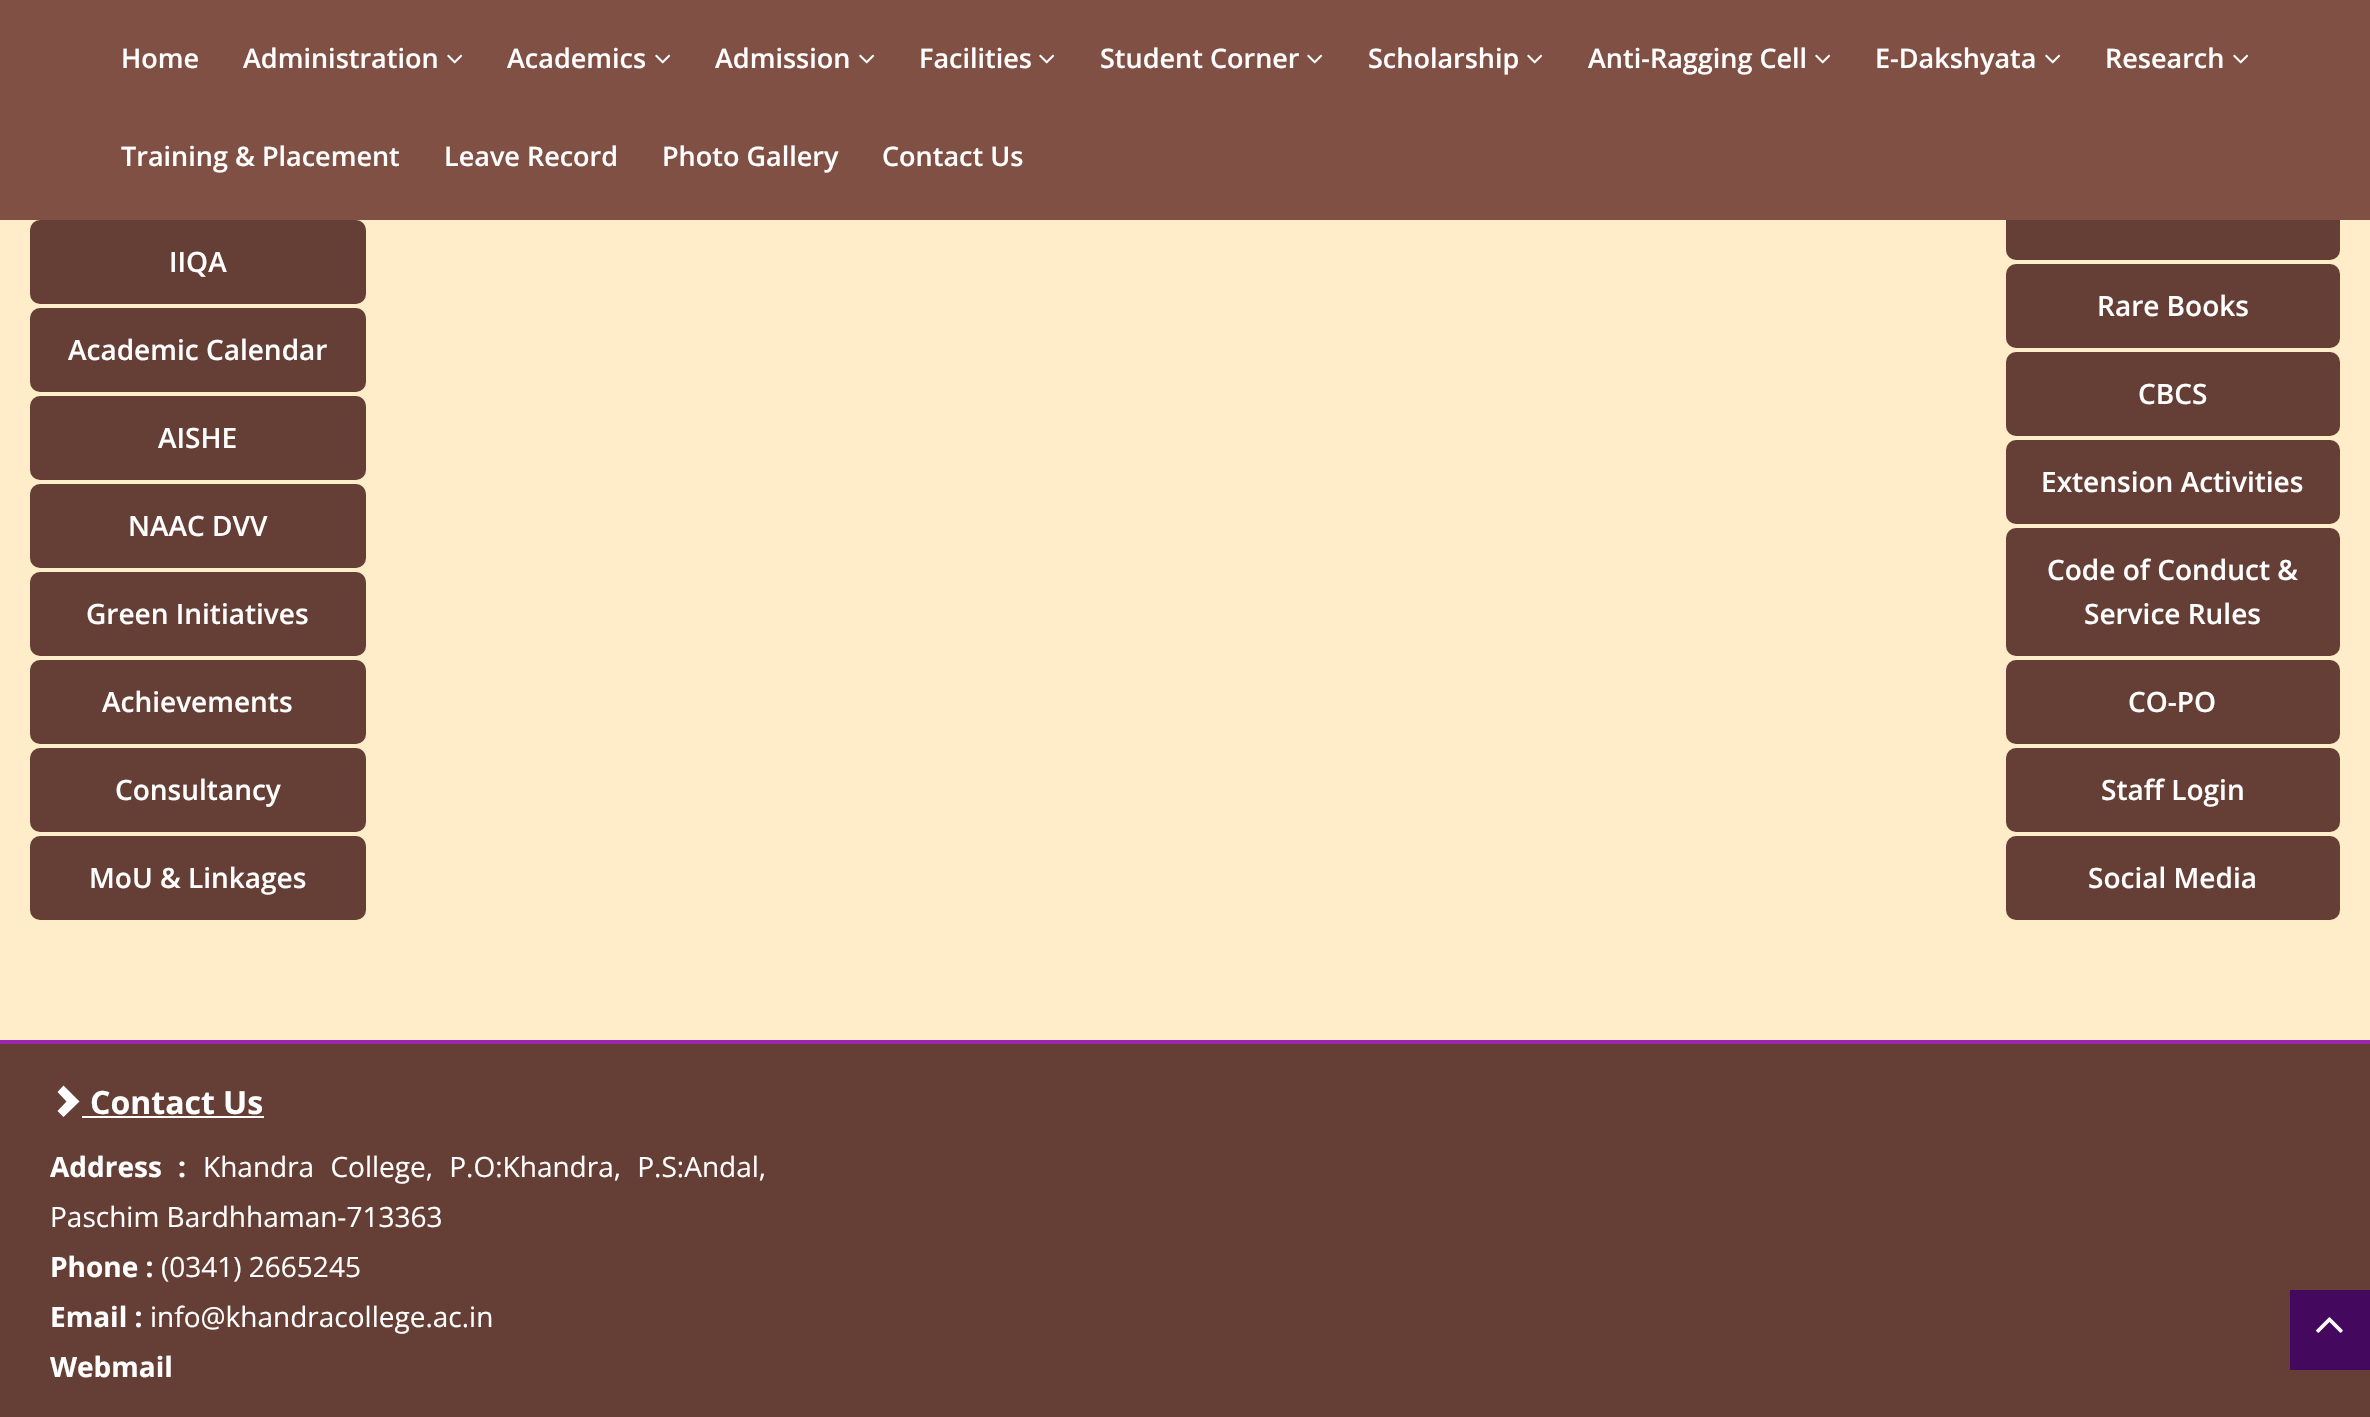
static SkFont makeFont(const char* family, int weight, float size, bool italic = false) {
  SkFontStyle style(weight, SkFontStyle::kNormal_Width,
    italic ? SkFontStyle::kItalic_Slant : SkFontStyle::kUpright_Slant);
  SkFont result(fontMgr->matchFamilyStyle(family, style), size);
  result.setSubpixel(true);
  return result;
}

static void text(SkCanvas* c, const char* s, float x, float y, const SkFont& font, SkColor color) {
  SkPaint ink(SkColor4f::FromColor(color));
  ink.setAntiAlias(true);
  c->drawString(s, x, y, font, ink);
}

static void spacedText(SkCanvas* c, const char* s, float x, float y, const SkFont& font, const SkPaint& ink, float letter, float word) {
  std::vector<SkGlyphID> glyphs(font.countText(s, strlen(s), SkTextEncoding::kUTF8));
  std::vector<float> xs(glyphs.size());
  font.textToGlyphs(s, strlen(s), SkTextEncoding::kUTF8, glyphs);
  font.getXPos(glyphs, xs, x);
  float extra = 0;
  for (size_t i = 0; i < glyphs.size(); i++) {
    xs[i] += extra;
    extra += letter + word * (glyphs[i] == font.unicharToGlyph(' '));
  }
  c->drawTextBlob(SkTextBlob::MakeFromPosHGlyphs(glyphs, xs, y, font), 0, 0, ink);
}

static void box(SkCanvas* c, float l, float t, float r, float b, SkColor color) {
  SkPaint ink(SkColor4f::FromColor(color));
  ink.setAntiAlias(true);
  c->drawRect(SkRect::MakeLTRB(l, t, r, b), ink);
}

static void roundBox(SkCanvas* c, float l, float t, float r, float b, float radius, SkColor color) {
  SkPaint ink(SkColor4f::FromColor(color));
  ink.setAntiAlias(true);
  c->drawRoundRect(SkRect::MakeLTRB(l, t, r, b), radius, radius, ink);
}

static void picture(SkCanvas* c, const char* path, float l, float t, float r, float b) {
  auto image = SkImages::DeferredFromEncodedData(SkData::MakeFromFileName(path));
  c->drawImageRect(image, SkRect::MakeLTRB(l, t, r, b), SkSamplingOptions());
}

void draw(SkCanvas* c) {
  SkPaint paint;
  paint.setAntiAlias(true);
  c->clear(0xffffedc9);
  roundBox(c, 2006, 176, 2340, 260, 10, 0xff653e35);
  box(c, 0, 0, 2370, 220, 0xff805045);
  SkFont face1 = makeFont("Open Sans", 600, 27);
  text(c, "Home", 121, 68, face1, 0xffffffff);
  text(c, "Administration", 243, 68, face1, 0xffffffff);
  picture(c, "img_01.png", 447, 54, 463, 64);
  text(c, "Academics", 507, 68, face1, 0xffffffff);
  picture(c, "img_01.png", 655, 54, 671, 64);
  text(c, "Admission", 715, 68, face1, 0xffffffff);
  picture(c, "img_01.png", 859, 54, 875, 64);
  text(c, "Facilities", 919, 68, face1, 0xffffffff);
  picture(c, "img_01.png", 1039, 54, 1055, 64);
  text(c, "Student Corner", 1100, 68, face1, 0xffffffff);
  picture(c, "img_01.png", 1307, 54, 1323, 64);
  text(c, "Scholarship", 1368, 68, face1, 0xffffffff);
  picture(c, "img_01.png", 1527, 54, 1543, 64);
  text(c, "Anti-Ragging Cell", 1588, 68, face1, 0xffffffff);
  picture(c, "img_01.png", 1815, 54, 1831, 64);
  text(c, "E-Dakshyata", 1875, 68, face1, 0xffffffff);
  picture(c, "img_01.png", 2045, 54, 2061, 64);
  text(c, "Research", 2105, 68, face1, 0xffffffff);
  picture(c, "img_01.png", 2233, 54, 2249, 64);
  text(c, "Training & Placement", 121, 166, face1, 0xffffffff);
  text(c, "Leave Record", 444, 166, face1, 0xffffffff);
  text(c, "Photo Gallery", 662, 166, face1, 0xffffffff);
  text(c, "Contact Us", 882, 166, face1, 0xffffffff);
  roundBox(c, 30, 220, 366, 304, 10, 0xff653e35);
  SkFont face2 = makeFont("Open Sans", 600, 28);
  text(c, "IIQA", 169, 272, face2, 0xffffffff);
  roundBox(c, 30, 308, 366, 392, 10, 0xff653e35);
  text(c, "Academic Calendar", 68, 360, face2, 0xffffffff);
  roundBox(c, 30, 396, 366, 480, 10, 0xff653e35);
  text(c, "AISHE", 158, 448, face2, 0xffffffff);
  roundBox(c, 30, 484, 366, 568, 10, 0xff653e35);
  text(c, "NAAC DVV", 128, 536, face2, 0xffffffff);
  roundBox(c, 30, 572, 366, 656, 10, 0xff653e35);
  text(c, "Green Initiatives", 86, 624, face2, 0xffffffff);
  roundBox(c, 30, 660, 366, 744, 10, 0xff653e35);
  text(c, "Achievements", 102, 712, face2, 0xffffffff);
  roundBox(c, 30, 748, 366, 832, 10, 0xff653e35);
  text(c, "Consultancy", 115, 800, face2, 0xffffffff);
  roundBox(c, 30, 836, 366, 920, 10, 0xff653e35);
  text(c, "MoU & Linkages", 89, 888, face2, 0xffffffff);
  roundBox(c, 2006, 264, 2340, 348, 10, 0xff653e35);
  text(c, "Rare Books", 2097, 316, face2, 0xffffffff);
  roundBox(c, 2006, 352, 2340, 436, 10, 0xff653e35);
  text(c, "CBCS", 2138, 404, face2, 0xffffffff);
  roundBox(c, 2006, 440, 2340, 524, 10, 0xff653e35);
  text(c, "Extension Activities", 2041, 492, face2, 0xffffffff);
  roundBox(c, 2006, 528, 2340, 656, 10, 0xff653e35);
  text(c, "Code of Conduct &", 2047, 580, face2, 0xffffffff);
  text(c, "Service Rules", 2084, 624, face2, 0xffffffff);
  roundBox(c, 2006, 660, 2340, 744, 10, 0xff653e35);
  text(c, "CO-PO", 2128, 712, face2, 0xffffffff);
  roundBox(c, 2006, 748, 2340, 832, 10, 0xff653e35);
  text(c, "Staff Login", 2101, 800, face2, 0xffffffff);
  roundBox(c, 2006, 836, 2340, 920, 10, 0xff653e35);
  text(c, "Social Media", 2088, 888, face2, 0xffffffff);
  box(c, 0, 1040, 2370, 1044, 0xff9c27ae);
  box(c, 0, 1044, 2370, 1417, 0xff653e35);
  paint.setColor(0xffffffff);
  c->drawPath(SkPathBuilder().moveTo(57.5f, 1111).lineTo(66.5f, 1101.5f).lineTo(57.5f, 1092).lineTo(63.5f, 1085.5f).lineTo(79.5f, 1101.5f).lineTo(63.5f, 1117).close().detach(), paint);
  SkFont face3 = makeFont("Open Sans", 700, 32);
  text(c, "Contact Us", 90, 1114, face3, 0xffffffff);
  box(c, 82, 1116, 264, 1118, 0xffffffff);
  SkFont face4 = makeFont("Open Sans", 700, 28);
  spacedText(c, "Address :", 50, 1177, face4, paint, 0, 9);
  SkFont face5 = makeFont("Open Sans", 400, 28);
  spacedText(c, "Khandra College, P.O:Khandra, P.S:Andal,", 203, 1177, face5, paint, 0, 9);
  text(c, "Paschim Bardhhaman-713363", 50, 1227, face5, 0xffffffff);
  text(c, "Phone :", 50, 1277, face4, 0xffffffff);
  text(c, "(0341) 2665245", 161, 1277, face5, 0xffffffff);
  text(c, "Email :", 50, 1327, face4, 0xffffffff);
  text(c, "info@khandracollege.ac.in", 150, 1327, face5, 0xffffffff);
  text(c, "Webmail", 50, 1377, face4, 0xffffffff);
  box(c, 2290, 1290, 2370, 1370, 0xff44085f);
  picture(c, "img_02.png", 2316, 1317, 2343, 1333);
}
